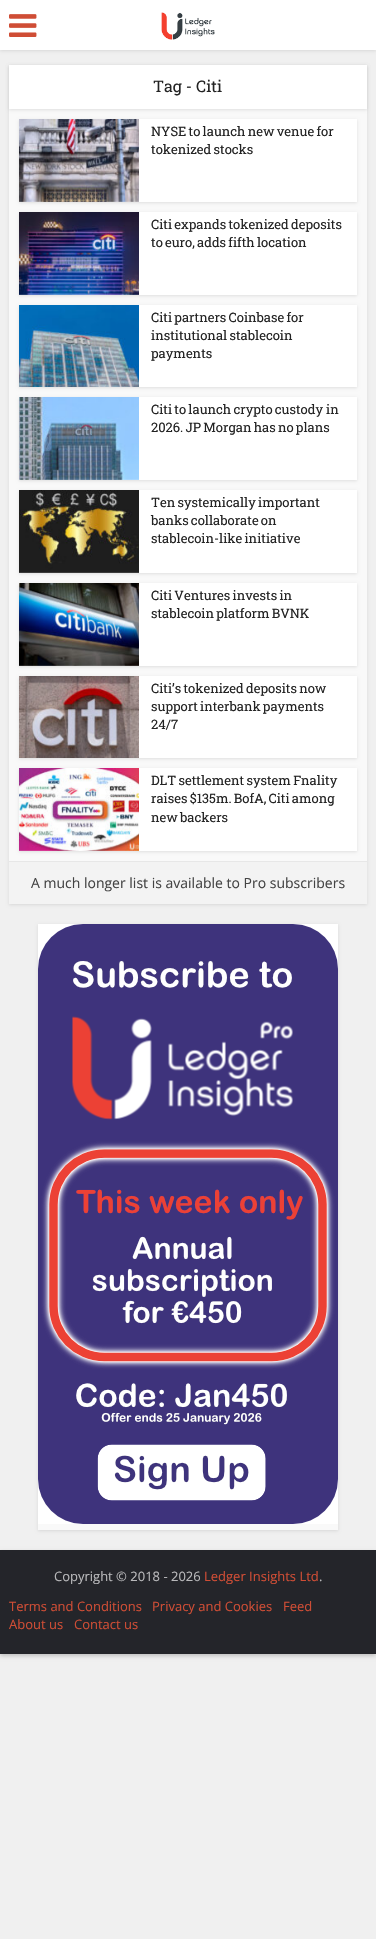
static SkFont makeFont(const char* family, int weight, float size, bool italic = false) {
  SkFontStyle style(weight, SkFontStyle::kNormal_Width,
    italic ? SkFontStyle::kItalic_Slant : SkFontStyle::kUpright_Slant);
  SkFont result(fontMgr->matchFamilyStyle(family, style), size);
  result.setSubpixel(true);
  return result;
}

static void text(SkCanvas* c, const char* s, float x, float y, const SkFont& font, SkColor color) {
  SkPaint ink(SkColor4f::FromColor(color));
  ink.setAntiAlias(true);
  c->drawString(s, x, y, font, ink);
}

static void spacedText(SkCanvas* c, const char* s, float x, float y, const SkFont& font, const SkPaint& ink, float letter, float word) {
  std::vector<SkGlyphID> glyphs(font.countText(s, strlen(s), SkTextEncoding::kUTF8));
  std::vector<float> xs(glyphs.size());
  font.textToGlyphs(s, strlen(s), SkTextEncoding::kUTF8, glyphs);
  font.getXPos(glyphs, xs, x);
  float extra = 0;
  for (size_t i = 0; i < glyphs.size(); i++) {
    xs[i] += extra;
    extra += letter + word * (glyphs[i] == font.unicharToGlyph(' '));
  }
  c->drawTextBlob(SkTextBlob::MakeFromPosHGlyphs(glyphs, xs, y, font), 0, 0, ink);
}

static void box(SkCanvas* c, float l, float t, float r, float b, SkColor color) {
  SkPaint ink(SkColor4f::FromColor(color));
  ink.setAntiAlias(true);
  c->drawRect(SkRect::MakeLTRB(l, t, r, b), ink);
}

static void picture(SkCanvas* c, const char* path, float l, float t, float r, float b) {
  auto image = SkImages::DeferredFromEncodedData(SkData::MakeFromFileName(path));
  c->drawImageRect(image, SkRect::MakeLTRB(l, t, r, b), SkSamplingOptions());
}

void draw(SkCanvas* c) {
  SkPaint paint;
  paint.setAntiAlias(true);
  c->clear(0xfff0f0f0);
  paint.setColor(0x1a000000);
  paint.setMaskFilter(SkMaskFilter::MakeBlur(kNormal_SkBlurStyle, 1.5f));
  c->drawRect(SkRect::MakeLTRB(0, 1, 376, 51), paint);
  paint.setMaskFilter(nullptr);
  box(c, 0, 0, 376, 50, 0xffffffff);
  picture(c, "img_01.png", 9, 14, 37, 37);
  picture(c, "img_02.png", 161, 12, 215, 40);
  paint.setMaskFilter(SkMaskFilter::MakeBlur(kNormal_SkBlurStyle, 1.5f));
  c->drawRect(SkRect::MakeLTRB(9, 66, 367, 905), paint);
  paint.setMaskFilter(nullptr);
  box(c, 9, 109, 367, 861, 0xfff9f9f9);
  paint.setMaskFilter(SkMaskFilter::MakeBlur(kNormal_SkBlurStyle, 1.5f));
  c->drawRect(SkRect::MakeLTRB(9, 66, 367, 110), paint);
  paint.setMaskFilter(nullptr);
  box(c, 9, 65, 367, 109, 0xffffffff);
  SkFont face1 = makeFont("Roboto Slab", 400, 16);
  text(c, "Tag - Citi", 153, 92, face1, 0xff232323);
  paint.setMaskFilter(SkMaskFilter::MakeBlur(kNormal_SkBlurStyle, 1.5f));
  c->drawRect(SkRect::MakeLTRB(19, 120, 357, 203), paint);
  paint.setMaskFilter(nullptr);
  box(c, 19, 119, 357, 202, 0xffffffff);
  picture(c, "img_03.png", 19, 119, 139, 202);
  SkFont face2 = makeFont("Roboto Slab", 400, 13);
  paint.setColor(0xff232323);
  spacedText(c, "NYSE to launch new venue for", 151, 136, face2, paint, 0, -1);
  spacedText(c, "tokenized stocks", 151, 154, face2, paint, 0, -1);
  paint.setColor(0x1a000000);
  paint.setMaskFilter(SkMaskFilter::MakeBlur(kNormal_SkBlurStyle, 1.5f));
  c->drawRect(SkRect::MakeLTRB(19, 213, 357, 296), paint);
  paint.setMaskFilter(nullptr);
  box(c, 19, 212, 357, 295, 0xffffffff);
  picture(c, "img_04.png", 19, 212, 139, 295);
  paint.setColor(0xff232323);
  spacedText(c, "Citi expands tokenized deposits", 151, 229, face2, paint, 0, -1);
  spacedText(c, "to euro, adds fifth location", 151, 247, face2, paint, 0, -1);
  paint.setColor(0x1a000000);
  paint.setMaskFilter(SkMaskFilter::MakeBlur(kNormal_SkBlurStyle, 1.5f));
  c->drawRect(SkRect::MakeLTRB(19, 306, 357, 388), paint);
  paint.setMaskFilter(nullptr);
  box(c, 139, 305, 357, 387, 0xffffffff);
  picture(c, "img_05.png", 19, 305, 139, 387);
  paint.setColor(0xff232323);
  spacedText(c, "Citi partners Coinbase for", 151, 322, face2, paint, 0, -1);
  spacedText(c, "institutional stablecoin", 151, 340, face2, paint, 0, -1);
  text(c, "payments", 151, 358, face2, 0xff232323);
  paint.setColor(0x1a000000);
  paint.setMaskFilter(SkMaskFilter::MakeBlur(kNormal_SkBlurStyle, 1.5f));
  c->drawRect(SkRect::MakeLTRB(19, 398, 357, 481), paint);
  paint.setMaskFilter(nullptr);
  box(c, 19, 397, 357, 480, 0xffffffff);
  picture(c, "img_06.png", 19, 397, 139, 480);
  paint.setColor(0xff232323);
  spacedText(c, "Citi to launch crypto custody", 151, 414, face2, paint, 0, -1);
  text(c, "in", 326, 414, face2, 0xff232323);
  spacedText(c, "2026. JP Morgan has no plans", 151, 432, face2, paint, 0, -1);
  paint.setColor(0x1a000000);
  paint.setMaskFilter(SkMaskFilter::MakeBlur(kNormal_SkBlurStyle, 1.5f));
  c->drawRect(SkRect::MakeLTRB(19, 491, 357, 574), paint);
  paint.setMaskFilter(nullptr);
  box(c, 19, 490, 357, 573, 0xffffffff);
  picture(c, "img_07.png", 19, 490, 139, 573);
  paint.setColor(0xff232323);
  spacedText(c, "Ten systemically important", 151, 507, face2, paint, 0, -1);
  spacedText(c, "banks collaborate on", 151, 525, face2, paint, 0, -1);
  spacedText(c, "stablecoin-like initiative", 151, 543, face2, paint, 0, -1);
  paint.setColor(0x1a000000);
  paint.setMaskFilter(SkMaskFilter::MakeBlur(kNormal_SkBlurStyle, 1.5f));
  c->drawRect(SkRect::MakeLTRB(19, 584, 357, 667), paint);
  paint.setMaskFilter(nullptr);
  box(c, 19, 583, 357, 666, 0xffffffff);
  picture(c, "img_08.png", 19, 583, 139, 666);
  paint.setColor(0xff232323);
  spacedText(c, "Citi Ventures invests in", 151, 600, face2, paint, 0, -1);
  spacedText(c, "stablecoin platform BVNK", 151, 618, face2, paint, 0, -1);
  paint.setColor(0x1a000000);
  paint.setMaskFilter(SkMaskFilter::MakeBlur(kNormal_SkBlurStyle, 1.5f));
  c->drawRect(SkRect::MakeLTRB(19, 677, 357, 759), paint);
  paint.setMaskFilter(nullptr);
  box(c, 139, 676, 357, 758, 0xffffffff);
  picture(c, "img_09.png", 19, 676, 139, 758);
  paint.setColor(0xff232323);
  spacedText(c, "Citi’s tokenized deposits now", 151, 693, face2, paint, 0, -1);
  spacedText(c, "support interbank payments", 151, 711, face2, paint, 0, -1);
  text(c, "24/7", 151, 729, face2, 0xff232323);
  paint.setColor(0x1a000000);
  paint.setMaskFilter(SkMaskFilter::MakeBlur(kNormal_SkBlurStyle, 1.5f));
  c->drawRect(SkRect::MakeLTRB(19, 769, 357, 852), paint);
  paint.setMaskFilter(nullptr);
  box(c, 19, 768, 357, 851, 0xffffffff);
  picture(c, "img_10.png", 19, 768, 139, 851);
  paint.setColor(0xff232323);
  spacedText(c, "DLT settlement system Fnality", 151, 785, face2, paint, 0, -1);
  spacedText(c, "raises $135m. BofA, Citi among", 151, 803, face2, paint, 0, -1);
  spacedText(c, "new backers", 151, 822, face2, paint, 0, -1);
  box(c, 9, 862, 367, 904, 0xfff3f3f3);
  box(c, 9, 861, 367, 862, 0xffe7e7e7);
  SkFont face3 = makeFont("Open Sans", 400, 14);
  text(c, "A much longer list is available to Pro subscribers", 31, 888, face3, 0xff444444);
  paint.setColor(0x1a000000);
  paint.setMaskFilter(SkMaskFilter::MakeBlur(kNormal_SkBlurStyle, 1.5f));
  c->drawRect(SkRect::MakeLTRB(38, 925, 338, 1531), paint);
  paint.setMaskFilter(nullptr);
  box(c, 38, 1524, 338, 1530, 0xfff9f9f9);
  picture(c, "img_11.png", 38, 924, 338, 1524);
  paint.setColor(0x33000000);
  paint.setMaskFilter(SkMaskFilter::MakeBlur(kNormal_SkBlurStyle, 2));
  c->drawRect(SkRect::MakeLTRB(0, 1552, 376, 1656), paint);
  paint.setMaskFilter(nullptr);
  box(c, 0, 1550, 376, 1654, 0xff24252a);
  SkFont face4 = makeFont("Open Sans", 400, 13);
  text(c, "Copyright © 2018 - 2026", 54, 1581, face4, 0xffb9b9bb);
  text(c, "Ledger Insights Ltd", 204, 1581, face4, 0xffcf4d35);
  text(c, ".", 319, 1581, face4, 0xffb9b9bb);
  text(c, "Terms and Conditions", 9, 1611, face4, 0xffcf4d35);
  text(c, "Privacy and Cookies", 152, 1611, face4, 0xffcf4d35);
  text(c, "Feed", 283, 1611, face4, 0xffcf4d35);
  text(c, "About us", 9, 1629, face4, 0xffcf4d35);
  text(c, "Contact us", 74, 1629, face4, 0xffcf4d35);
}
